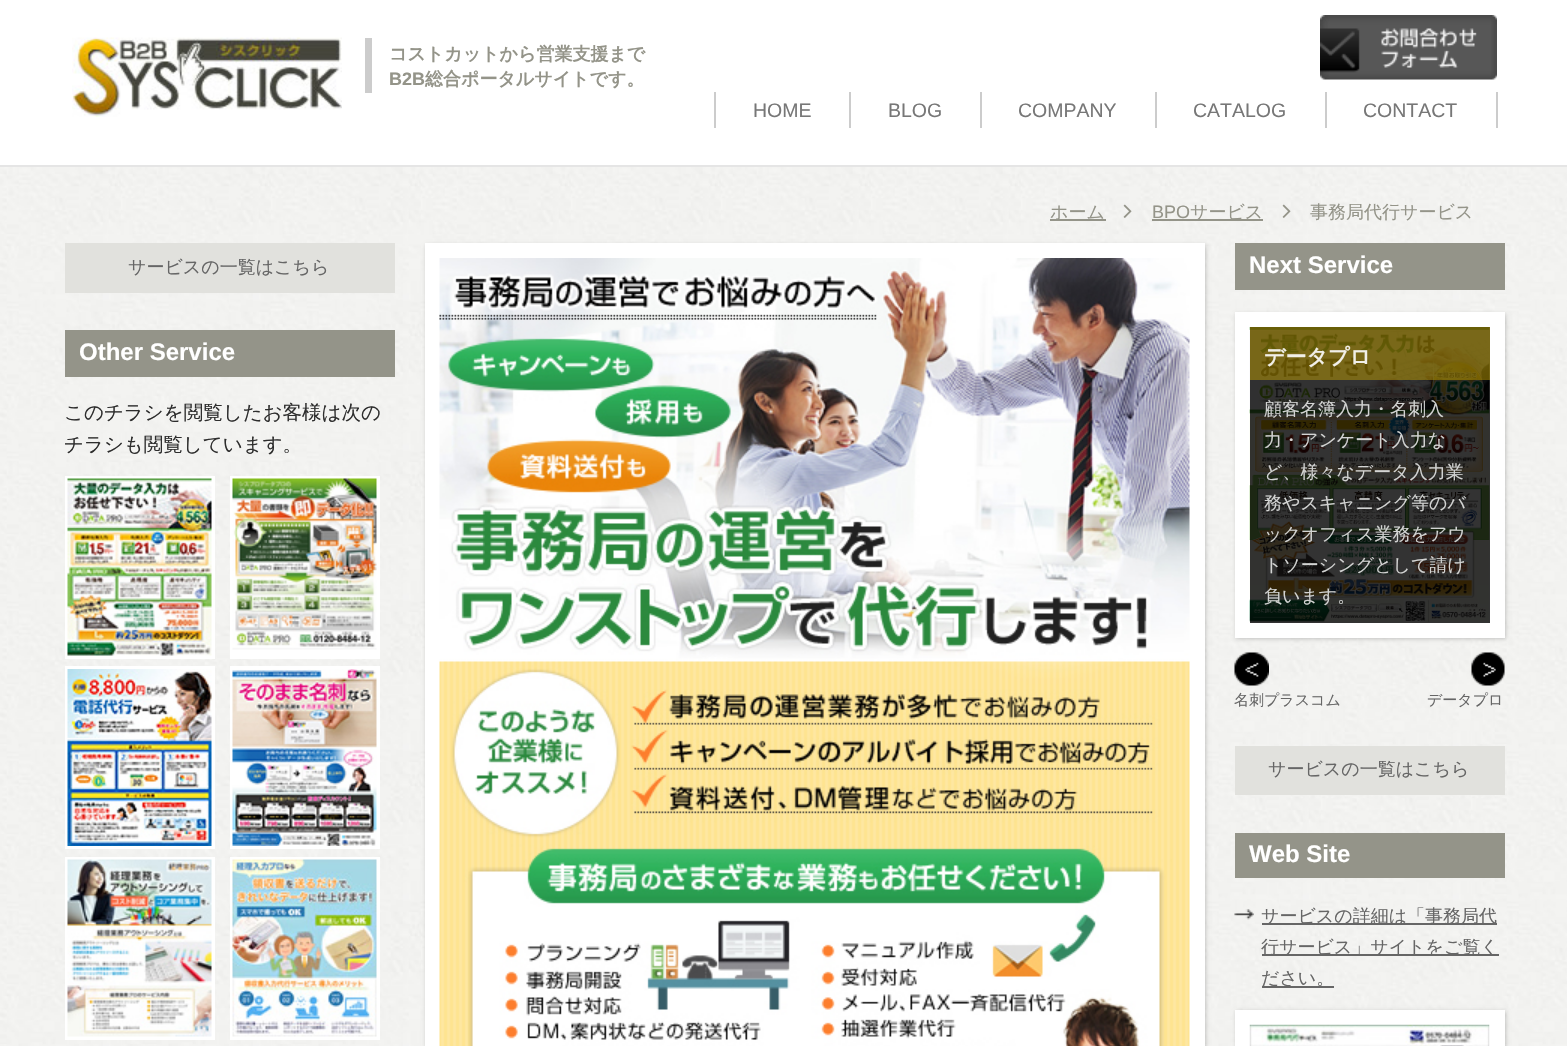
static SkFont makeFont(const char* family, int weight, float size, bool italic = false) {
  SkFontStyle style(weight, SkFontStyle::kNormal_Width,
    italic ? SkFontStyle::kItalic_Slant : SkFontStyle::kUpright_Slant);
  SkFont result(fontMgr->matchFamilyStyle(family, style), size);
  result.setSubpixel(true);
  return result;
}

static void text(SkCanvas* c, const char* s, float x, float y, const SkFont& font, SkColor color) {
  SkPaint ink(SkColor4f::FromColor(color));
  ink.setAntiAlias(true);
  c->drawString(s, x, y, font, ink);
}

static void box(SkCanvas* c, float l, float t, float r, float b, SkColor color) {
  SkPaint ink(SkColor4f::FromColor(color));
  ink.setAntiAlias(true);
  c->drawRect(SkRect::MakeLTRB(l, t, r, b), ink);
}

static void picture(SkCanvas* c, const char* path, float l, float t, float r, float b) {
  auto image = SkImages::DeferredFromEncodedData(SkData::MakeFromFileName(path));
  c->drawImageRect(image, SkRect::MakeLTRB(l, t, r, b), SkSamplingOptions());
}

void draw(SkCanvas* c) {
  SkPaint paint;
  paint.setAntiAlias(true);
  c->clear(0xffffffff);
  picture(c, "img_01.png", 0, 167, 1567, 1046);
  box(c, 0, 165, 1567, 167, 0xffe5e5e5);
  picture(c, "img_02.png", 72, 37, 342, 117);
  box(c, 365, 38, 372, 93, 0xffcccccc);
  SkFont face1 = makeFont("WenQuanYi Zen Hei", 700, 18);
  text(c, "コストカットから営業支援まで", 389, 60, face1, 0xff949489);
  SkFont face2 = makeFont("Liberation Sans", 700, 18);
  text(c, "B2B", 389, 85, face2, 0xff949489);
  text(c, "総合ポータルサイトです。", 425, 85, face1, 0xff949489);
  picture(c, "img_03.png", 1320, 15, 1497, 80);
  box(c, 714, 92, 716, 128, 0xffcccccc);
  SkFont face3 = makeFont("Liberation Sans", 400, 19.5f);
  text(c, "HOME", 753, 117, face3, 0xff777777);
  box(c, 849, 92, 851, 128, 0xffcccccc);
  text(c, "BLOG", 888, 117, face3, 0xff777777);
  box(c, 980, 92, 982, 128, 0xffcccccc);
  text(c, "COMPANY", 1018, 117, face3, 0xff777777);
  box(c, 1155, 92, 1157, 128, 0xffcccccc);
  text(c, "CATALOG", 1193, 117, face3, 0xff777777);
  box(c, 1496, 92, 1498, 128, 0xffcccccc);
  box(c, 1325, 92, 1327, 128, 0xffcccccc);
  text(c, "CONTACT", 1363, 117, face3, 0xff777777);
  box(c, 1050, 219, 1106, 221, 0xff949489);
  SkFont face4 = makeFont("WenQuanYi Zen Hei", 500, 18);
  text(c, "ホーム", 1050, 218, face4, 0xff949489);
  picture(c, "img_04.png", 1123, 204, 1132, 218);
  SkFont face5 = makeFont("Liberation Sans", 400, 18);
  text(c, "BPO", 1152, 218, face5, 0xff949489);
  box(c, 1152, 219, 1263, 221, 0xff949489);
  text(c, "サービス", 1190, 218, face4, 0xff949489);
  picture(c, "img_05.png", 1282, 204, 1291, 218);
  text(c, "事務局代行サービス", 1310, 218, face4, 0xff949489);
  box(c, 65, 243, 395, 293, 0xffe1e1dd);
  text(c, "サービスの一覧はこちら", 128, 273, face4, 0xff666666);
  box(c, 65, 330, 395, 377, 0xff949489);
  SkFont face6 = makeFont("Liberation Sans", 700, 24);
  text(c, "Other Service", 79, 360, face6, 0xffffffff);
  SkFont face7 = makeFont("WenQuanYi Zen Hei", 500, 19.5f);
  text(c, "このチラシを閲覧したお客様は次の", 64, 419, face7, 0xff2d2d2d);
  text(c, "チラシも閲覧しています。", 64, 451, face7, 0xff2d2d2d);
  box(c, 65, 476, 215, 659, 0xffffffff);
  picture(c, "img_06.png", 67, 478, 212, 656);
  box(c, 230, 476, 380, 659, 0xffffffff);
  picture(c, "img_07.png", 232, 478, 377, 650);
  box(c, 65, 666, 215, 849, 0xffffffff);
  picture(c, "img_08.png", 67, 669, 212, 846);
  box(c, 230, 666, 380, 849, 0xffffffff);
  picture(c, "img_09.png", 232, 669, 377, 846);
  box(c, 65, 857, 215, 1040, 0xffffffff);
  picture(c, "img_10.png", 67, 859, 212, 1037);
  box(c, 230, 857, 380, 1040, 0xffffffff);
  picture(c, "img_11.png", 232, 859, 377, 1037);
  paint.setColor(0x33000000);
  paint.setMaskFilter(SkMaskFilter::MakeBlur(kNormal_SkBlurStyle, 2));
  c->drawRect(SkRect::MakeLTRB(426, 245, 1206, 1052), paint);
  paint.setMaskFilter(nullptr);
  box(c, 425, 243, 1205, 1046, 0xffffffff);
  picture(c, "img_12.png", 439, 258, 1190, 1046);
  box(c, 1235, 243, 1505, 290, 0xff949489);
  text(c, "Next Service", 1249, 273, face6, 0xffffffff);
  paint.setMaskFilter(SkMaskFilter::MakeBlur(kNormal_SkBlurStyle, 2));
  c->drawRect(SkRect::MakeLTRB(1236, 314, 1506, 639), paint);
  paint.setMaskFilter(nullptr);
  box(c, 1235, 312, 1505, 638, 0xffffffff);
  picture(c, "img_13.png", 1249, 327, 1490, 623);
  box(c, 1250, 327, 1490, 380, 0xe66a5800);
  SkFont face8 = makeFont("WenQuanYi Zen Hei", 700, 21);
  text(c, "データプロ", 1264, 364, face8, 0xfff1efe8);
  box(c, 1250, 380, 1490, 623, 0xcc000000);
  text(c, "顧客名簿入力・名刺入", 1264, 415, face4, 0xffd3d4d3);
  text(c, "力・アンケート入力な", 1264, 446, face4, 0xffd3d4d3);
  text(c, "ど、様々なデータ入力業", 1264, 478, face4, 0xffd3d4d3);
  text(c, "務やスキャニング等のバ", 1264, 509, face4, 0xffd3d4d3);
  text(c, "ックオフィス業務をアウ", 1264, 540, face4, 0xffd3d4d3);
  text(c, "トソーシングとして請け", 1264, 571, face4, 0xffd3d4d3);
  text(c, "負います。", 1264, 602, face4, 0xffd3d4d3);
  picture(c, "img_14.png", 1234, 652, 1269, 686);
  SkFont face9 = makeFont("WenQuanYi Zen Hei", 500, 15);
  text(c, "名刺プラスコム", 1234, 705, face9, 0xff666666);
  picture(c, "img_15.png", 1471, 652, 1505, 686);
  text(c, "データプロ", 1427, 705, face9, 0xff666666);
  box(c, 1235, 746, 1505, 795, 0xffe1e1dd);
  text(c, "サービスの一覧はこちら", 1268, 775, face4, 0xff666666);
  box(c, 1235, 833, 1505, 878, 0xff949489);
  text(c, "Web Site", 1249, 862, face6, 0xffffffff);
  picture(c, "img_16.png", 1234, 909, 1254, 920);
  box(c, 1262, 923, 1497, 925, 0xff666666);
  text(c, "サービスの詳細は「事務局代", 1261, 922, face4, 0xff666666);
  box(c, 1262, 954, 1499, 956, 0xff666666);
  text(c, "行サービス」サイトをご覧く", 1261, 953, face4, 0xff666666);
  box(c, 1262, 986, 1334, 988, 0xff666666);
  text(c, "ださい。", 1261, 984, face4, 0xff666666);
  paint.setMaskFilter(SkMaskFilter::MakeBlur(kNormal_SkBlurStyle, 2));
  c->drawRect(SkRect::MakeLTRB(1236, 1011, 1506, 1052), paint);
  paint.setMaskFilter(nullptr);
  box(c, 1235, 1010, 1505, 1046, 0xffffffff);
  picture(c, "img_17.png", 1249, 1024, 1490, 1046);
}
